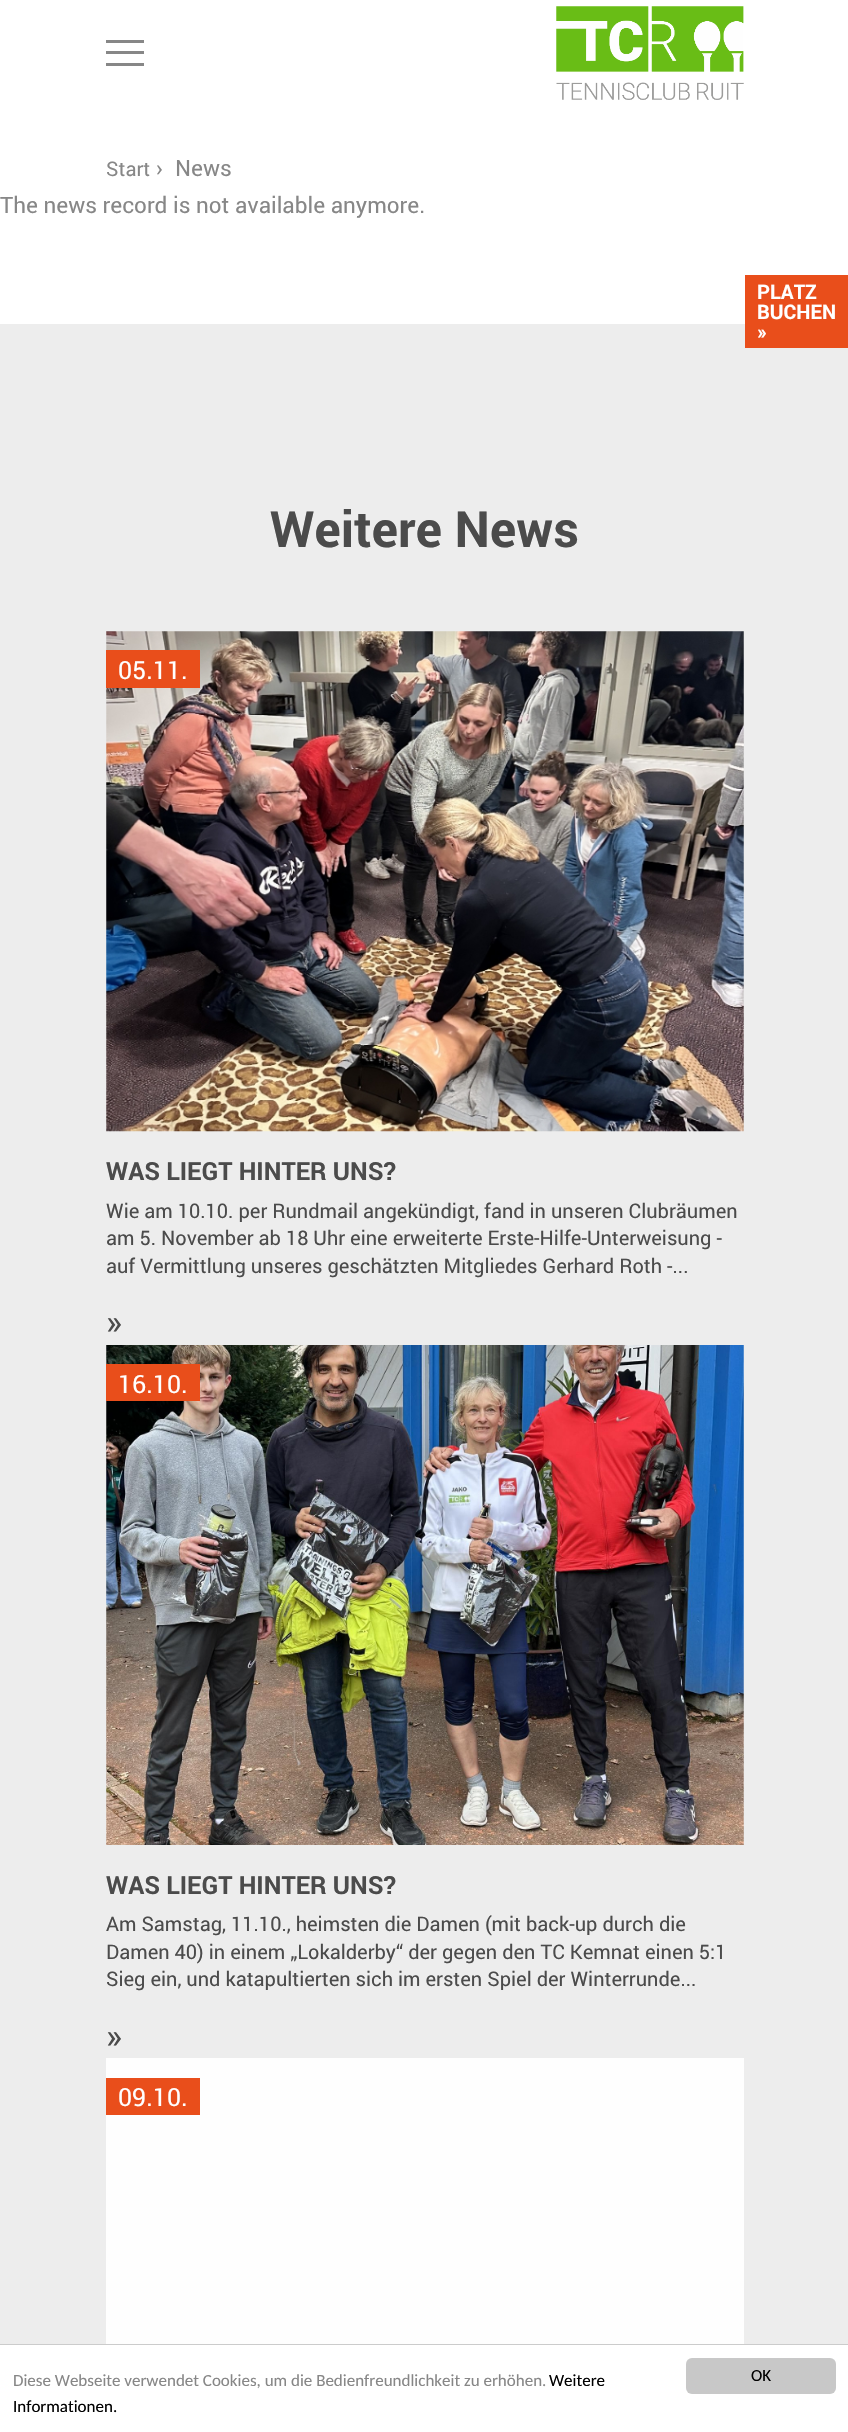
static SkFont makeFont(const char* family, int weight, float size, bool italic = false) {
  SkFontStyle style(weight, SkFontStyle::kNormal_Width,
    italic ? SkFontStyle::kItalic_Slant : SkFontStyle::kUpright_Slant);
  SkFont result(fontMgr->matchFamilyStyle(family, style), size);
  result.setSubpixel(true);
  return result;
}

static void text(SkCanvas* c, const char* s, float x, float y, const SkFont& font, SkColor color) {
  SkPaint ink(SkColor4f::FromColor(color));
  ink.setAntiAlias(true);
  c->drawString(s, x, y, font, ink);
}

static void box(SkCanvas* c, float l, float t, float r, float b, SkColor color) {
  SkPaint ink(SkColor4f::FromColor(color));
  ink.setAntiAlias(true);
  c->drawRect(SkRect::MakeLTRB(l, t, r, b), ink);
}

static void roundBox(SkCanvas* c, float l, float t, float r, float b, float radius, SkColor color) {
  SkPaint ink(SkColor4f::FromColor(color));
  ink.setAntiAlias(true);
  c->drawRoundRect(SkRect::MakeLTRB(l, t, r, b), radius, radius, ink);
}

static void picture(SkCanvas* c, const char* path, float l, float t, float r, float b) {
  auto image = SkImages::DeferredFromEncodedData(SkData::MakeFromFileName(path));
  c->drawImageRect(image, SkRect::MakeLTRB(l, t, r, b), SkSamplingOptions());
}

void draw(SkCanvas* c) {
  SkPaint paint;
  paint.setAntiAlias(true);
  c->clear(0xffffffff);
  box(c, 106, 40, 144, 43, 0xff878787);
  box(c, 106, 51, 144, 54, 0xff878787);
  box(c, 106, 63, 144, 66, 0xff878787);
  picture(c, "img_01.png", 556, 6, 744, 100);
  SkFont face1 = makeFont("Roboto", 400, 20);
  text(c, "Start", 106, 176, face1, 0xff878787);
  SkFont face2 = makeFont("Roboto", 400, 22.5f);
  text(c, "›", 156, 176, face2, 0xff878787);
  text(c, "News", 175, 176, face2, 0xff878787);
  text(c, "The news record is not available anymore.", 0, 213, face2, 0xff878787);
  box(c, 0, 324, 848, 2344, 0xffededed);
  box(c, 745, 275, 848, 348, 0xffe94e1b);
  SkFont face3 = makeFont("Roboto", 700, 20);
  text(c, "PLATZ", 757, 299, face3, 0xffffffff);
  text(c, "BUCHEN", 757, 319, face3, 0xffffffff);
  text(c, "»", 757, 339, face3, 0xffffffff);
  SkFont face4 = makeFont("Roboto", 700, 50);
  text(c, "Weitere News", 270, 547, face4, 0xff4b4b4b);
  picture(c, "img_02.png", 106, 631, 744, 1132);
  box(c, 106, 650, 200, 688, 0xffe94e1b);
  SkFont face5 = makeFont("Roboto", 400, 25);
  text(c, "05.11.", 118, 679, face5, 0xffffffff);
  SkFont face6 = makeFont("Roboto", 700, 25);
  text(c, "WAS LIEGT HINTER UNS?", 106, 1180, face6, 0xff4b4b4b);
  text(c, "Wie am 10.10. per Rundmail angekündigt, fand in unseren Clubräumen", 106, 1218, face1, 0xff4b4b4b);
  text(c, "am 5. November ab 18 Uhr eine erweiterte Erste-Hilfe-Unterweisung -", 106, 1245, face1, 0xff4b4b4b);
  text(c, "auf Vermittlung unseres geschätzten Mitgliedes Gerhard Roth -...", 106, 1273, face1, 0xff4b4b4b);
  SkFont face7 = makeFont("Roboto", 400, 34);
  text(c, "»", 106, 1334, face7, 0xff4b4b4b);
  picture(c, "img_03.png", 106, 1345, 744, 1845);
  box(c, 106, 1364, 200, 1401, 0xffe94e1b);
  text(c, "16.10.", 118, 1393, face5, 0xffffffff);
  text(c, "WAS LIEGT HINTER UNS?", 106, 1894, face6, 0xff4b4b4b);
  text(c, "Am Samstag, 11.10., heimsten die Damen (mit back-up durch die", 106, 1931, face1, 0xff4b4b4b);
  text(c, "Damen 40) in einem „Lokalderby“ der gegen den TC Kemnat einen 5:1", 106, 1959, face1, 0xff4b4b4b);
  text(c, "Sieg ein, und katapultierten sich im ersten Spiel der Winterrunde...", 106, 1986, face1, 0xff4b4b4b);
  text(c, "»", 106, 2048, face7, 0xff4b4b4b);
  box(c, 106, 2058, 744, 2344, 0xfffefefe);
  box(c, 106, 2078, 200, 2115, 0xffe94e1b);
  text(c, "09.10.", 118, 2106, face5, 0xffffffff);
  box(c, 0, 2344, 848, 2345, 0xffcccccc);
  SkFont face8 = makeFont("Carlito", 400, 17);
  text(c, "Diese Webseite verwendet Cookies, um die Bedienfreundlichkeit zu erhöhen.", 13, 2386, face8, 0xff878787);
  text(c, "Weitere", 549, 2386, face8, 0xff000000);
  text(c, "Informationen.", 13, 2412, face8, 0xff000000);
  roundBox(c, 686, 2358, 836, 2394, 6, 0xffc8c8c8);
  text(c, "OK", 751, 2381, face8, 0xff000000);
}
